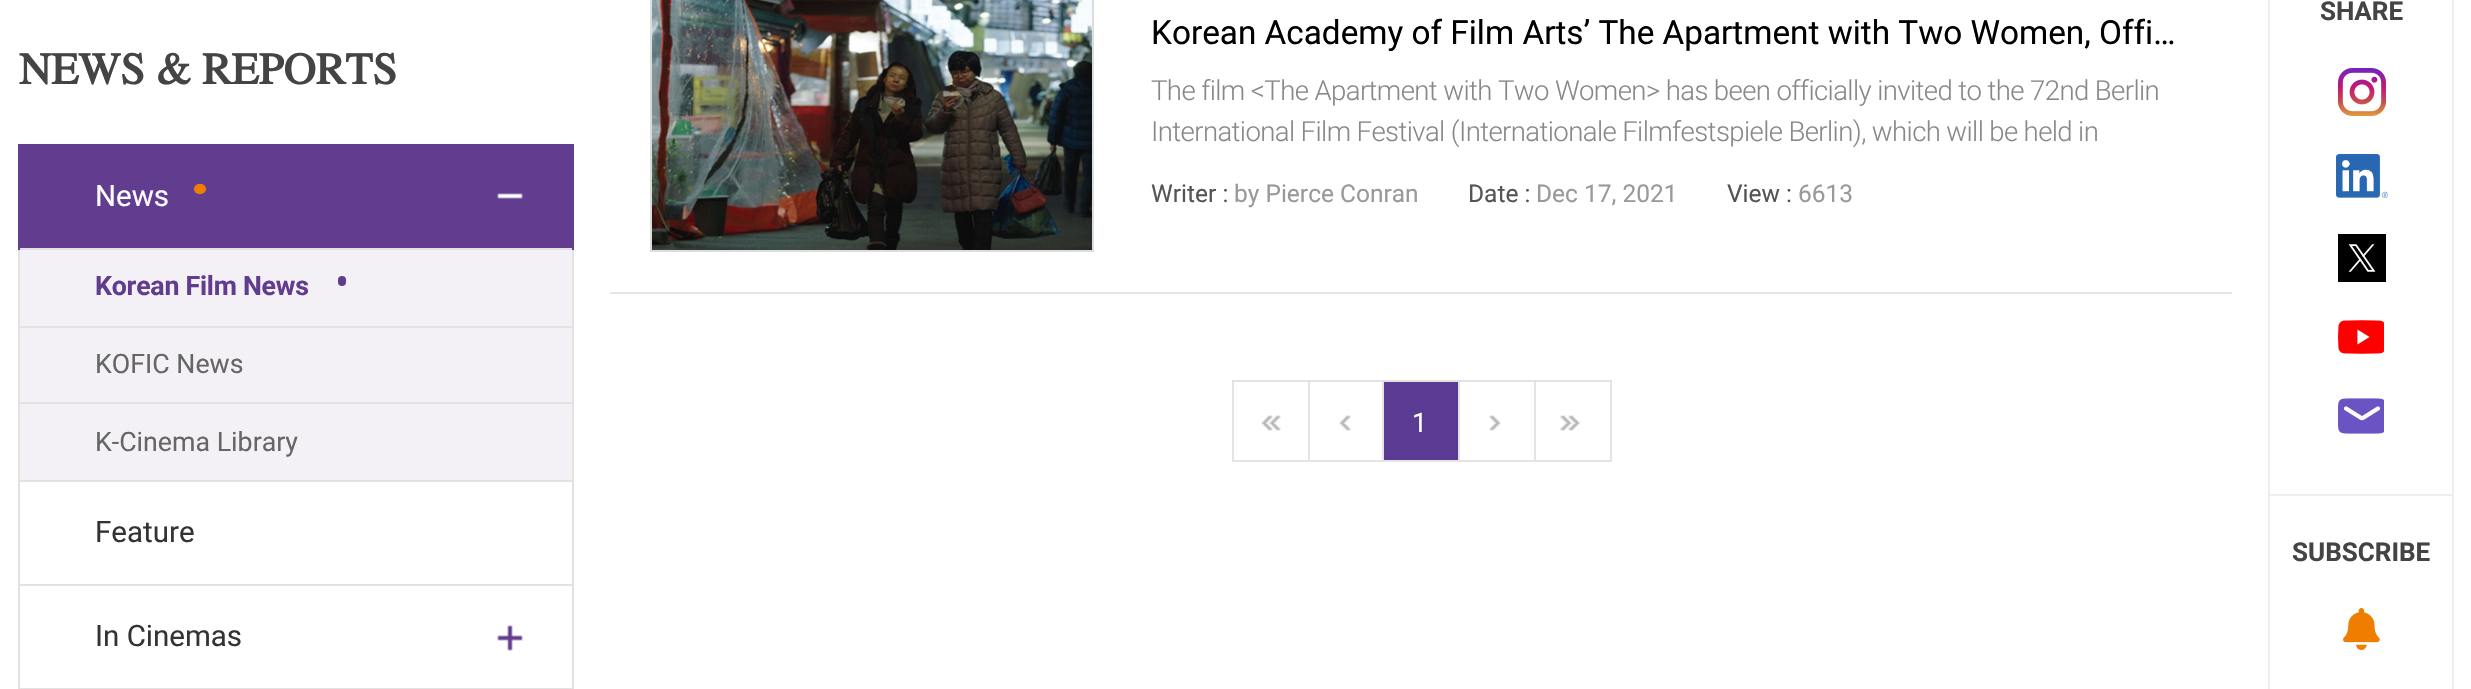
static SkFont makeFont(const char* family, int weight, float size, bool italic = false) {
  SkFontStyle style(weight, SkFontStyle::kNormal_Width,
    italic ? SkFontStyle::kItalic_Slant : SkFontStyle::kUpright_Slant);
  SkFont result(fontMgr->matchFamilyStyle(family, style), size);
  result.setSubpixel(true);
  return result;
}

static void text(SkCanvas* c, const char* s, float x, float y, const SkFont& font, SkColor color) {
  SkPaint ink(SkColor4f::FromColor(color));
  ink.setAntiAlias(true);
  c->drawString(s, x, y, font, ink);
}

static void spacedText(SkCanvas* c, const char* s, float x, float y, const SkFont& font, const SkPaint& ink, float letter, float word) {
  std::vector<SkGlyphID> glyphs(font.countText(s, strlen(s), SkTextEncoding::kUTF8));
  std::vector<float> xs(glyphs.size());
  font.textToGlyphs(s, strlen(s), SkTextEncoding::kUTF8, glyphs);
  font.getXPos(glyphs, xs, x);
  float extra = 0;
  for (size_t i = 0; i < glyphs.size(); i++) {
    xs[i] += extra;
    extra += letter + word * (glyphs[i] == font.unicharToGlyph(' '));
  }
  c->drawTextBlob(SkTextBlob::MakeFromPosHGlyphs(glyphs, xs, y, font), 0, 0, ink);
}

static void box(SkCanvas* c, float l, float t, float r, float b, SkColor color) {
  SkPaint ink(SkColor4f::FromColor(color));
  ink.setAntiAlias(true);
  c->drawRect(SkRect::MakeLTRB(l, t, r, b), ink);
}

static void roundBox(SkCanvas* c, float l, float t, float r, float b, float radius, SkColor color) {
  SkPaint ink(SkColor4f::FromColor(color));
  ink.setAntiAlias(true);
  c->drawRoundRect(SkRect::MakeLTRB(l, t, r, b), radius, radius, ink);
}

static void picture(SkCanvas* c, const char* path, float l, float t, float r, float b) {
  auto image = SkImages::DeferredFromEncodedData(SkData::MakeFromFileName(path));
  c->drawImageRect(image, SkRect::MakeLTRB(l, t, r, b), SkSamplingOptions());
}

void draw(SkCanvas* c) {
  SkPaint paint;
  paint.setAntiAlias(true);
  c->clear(0xffffffff);
  SkFont face1 = makeFont("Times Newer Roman", 700, 44.5f);
  text(c, "NEWS & REPORTS", 19, 84, face1, 0xff444444);
  paint.setStyle(SkPaint::kStroke_Style);
  paint.setStrokeWidth(2);
  paint.setColor(0xffe2e2e2);
  c->drawRect(SkRect::MakeLTRB(19, 145, 573, 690), paint);
  box(c, 20, 480, 572, 482, 0xffe2e2e2);
  box(c, 20, 146, 572, 248, 0xff623d8f);
  picture(c, "img_01.png", 497, 193, 523, 199);
  paint.setColor(0xff623d8f);
  c->drawRect(SkRect::MakeLTRB(19, 145, 573, 249), paint);
  SkFont face2 = makeFont("Roboto", 400, 29.5f);
  text(c, "News", 95, 206, face2, 0xffffffff);
  roundBox(c, 194, 184, 206, 194, 5, 0xffee7d00);
  box(c, 20, 250, 572, 480, 0xfff3f1f5);
  box(c, 20, 248, 572, 250, 0xffe2e2e2);
  SkFont face3 = makeFont("Roboto", 700, 26.75f);
  paint.setStyle(SkPaint::kFill_Style);
  spacedText(c, "Korean Film News", 95, 295, face3, paint, -0.25f, 0);
  roundBox(c, 338, 276, 346, 286, 4, 0xff623d8f);
  box(c, 20, 326, 572, 328, 0xffe2e2e2);
  SkFont face4 = makeFont("Roboto", 400, 26.75f);
  text(c, "KOFIC News", 95, 373, face4, 0xff666666);
  box(c, 20, 402, 572, 404, 0xffe2e2e2);
  text(c, "K-Cinema Library", 95, 451, face4, 0xff666666);
  box(c, 20, 584, 572, 586, 0xffe2e2e2);
  text(c, "Feature", 95, 542, face2, 0xff333333);
  box(c, 20, 688, 572, 689, 0xffe2e2e2);
  picture(c, "img_02.png", 497, 625, 523, 651);
  text(c, "In Cinemas", 95, 646, face2, 0xff333333);
  box(c, 610, 292, 2232, 294, 0xffe5e5e5);
  paint.setStyle(SkPaint::kStroke_Style);
  paint.setColor(0xffdddddd);
  c->drawRect(SkRect::MakeLTRB(651, -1, 1093, 251), paint);
  picture(c, "img_03.png", 652, 0, 1092, 250);
  SkFont face5 = makeFont("Roboto", 400, 33.3f);
  text(c, "Korean Academy of Film Arts’ The Apartment with Two Women, Offi…", 1151, 44, face5, 0xff000000);
  SkFont face6 = makeFont("Roboto", 300, 27.55f);
  paint.setStyle(SkPaint::kFill_Style);
  paint.setColor(0xff888888);
  spacedText(c, "The film <The Apartment with Two Women> has been officially invited to the 72nd Berlin", 1151, 100, face6, paint, -0.6f, 0);
  spacedText(c, "International Film Festival (Internationale Filmfestspiele Berlin), which will be held in", 1151, 141, face6, paint, -0.6f, -0.1f);
  SkFont face7 = makeFont("Roboto", 400, 24.5f);
  text(c, "Writer :", 1151, 202, face7, 0xff555555);
  text(c, "by Pierce Conran", 1234, 202, face7, 0xff999999);
  text(c, "Date :", 1468, 202, face7, 0xff555555);
  text(c, "Dec 17, 2021", 1536, 202, face7, 0xff999999);
  text(c, "View :", 1727, 202, face7, 0xff555555);
  text(c, "6613", 1798, 202, face7, 0xff999999);
  paint.setStyle(SkPaint::kStroke_Style);
  paint.setColor(0xffeeeeee);
  c->drawRect(SkRect::MakeLTRB(2269, -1, 2453, 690), paint);
  box(c, 2270, 494, 2452, 496, 0xffeeeeee);
  SkFont face8 = makeFont("Roboto", 700, 26);
  text(c, "SHARE", 2320, 20, face8, 0xff444444);
  picture(c, "img_04.png", 2338, 68, 2386, 116);
  picture(c, "img_05.png", 2336, 154, 2388, 198);
  picture(c, "img_06.png", 2338, 234, 2386, 282);
  picture(c, "img_07.png", 2338, 320, 2384, 354);
  picture(c, "img_08.png", 2338, 398, 2384, 434);
  text(c, "SUBSCRIBE", 2292, 561, face8, 0xff444444);
  picture(c, "img_09.png", 2343, 608, 2380, 650);
  picture(c, "img_10.png", 1261, 415, 1281, 431);
  box(c, 1232, 380, 1308, 382, 0xffe3e3e3);
  box(c, 1232, 460, 1308, 462, 0xffe3e3e3);
  box(c, 1232, 380, 1234, 462, 0xffe3e3e3);
  picture(c, "img_11.png", 1339, 415, 1351, 431);
  paint.setColor(0xffe3e3e3);
  c->drawRect(SkRect::MakeLTRB(1309, 381, 1383, 461), paint);
  box(c, 1384, 382, 1458, 460, 0xff5b3a93);
  box(c, 1384, 380, 1612, 382, 0xffe3e3e3);
  box(c, 1458, 380, 1460, 462, 0xffe3e3e3);
  box(c, 1384, 460, 1460, 462, 0xffe3e3e3);
  SkFont face9 = makeFont("Roboto", 400, 27);
  text(c, "1", 1412, 432, face9, 0xffffffff);
  picture(c, "img_12.png", 1489, 415, 1501, 431);
  box(c, 1534, 380, 1536, 462, 0xffe3e3e3);
  box(c, 1460, 460, 1536, 462, 0xffe3e3e3);
  picture(c, "img_13.png", 1560, 415, 1580, 431);
  box(c, 1610, 380, 1612, 462, 0xffe3e3e3);
  box(c, 1536, 460, 1612, 462, 0xffe3e3e3);
}
